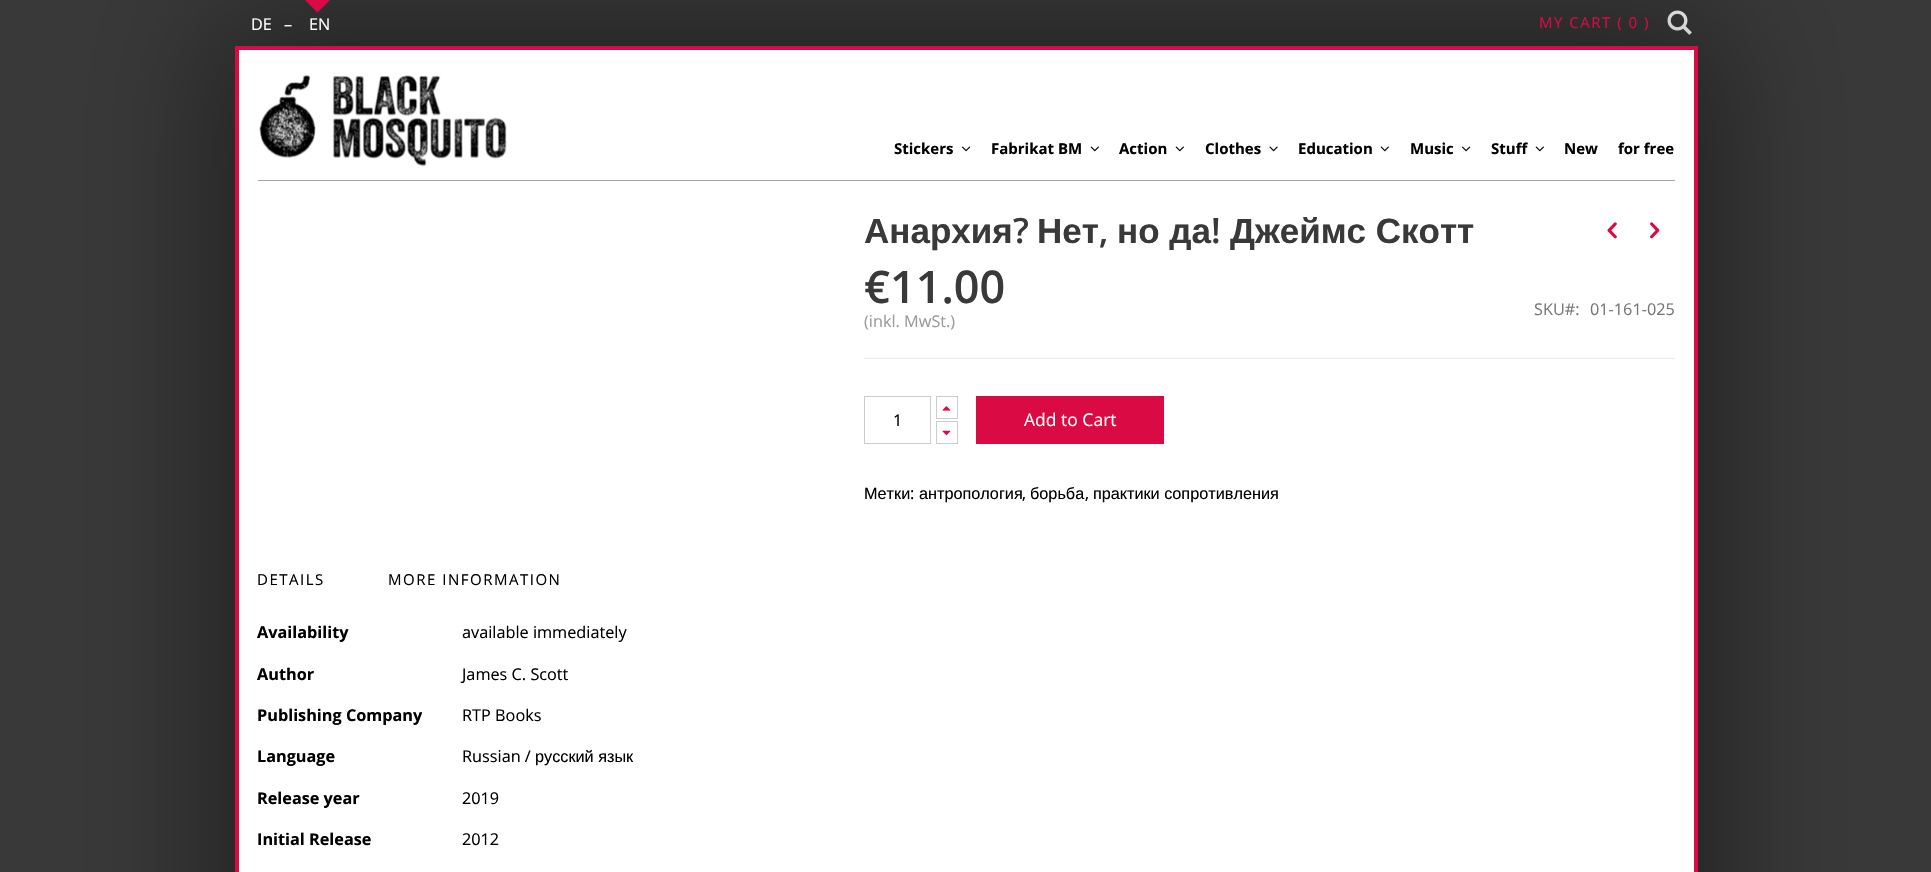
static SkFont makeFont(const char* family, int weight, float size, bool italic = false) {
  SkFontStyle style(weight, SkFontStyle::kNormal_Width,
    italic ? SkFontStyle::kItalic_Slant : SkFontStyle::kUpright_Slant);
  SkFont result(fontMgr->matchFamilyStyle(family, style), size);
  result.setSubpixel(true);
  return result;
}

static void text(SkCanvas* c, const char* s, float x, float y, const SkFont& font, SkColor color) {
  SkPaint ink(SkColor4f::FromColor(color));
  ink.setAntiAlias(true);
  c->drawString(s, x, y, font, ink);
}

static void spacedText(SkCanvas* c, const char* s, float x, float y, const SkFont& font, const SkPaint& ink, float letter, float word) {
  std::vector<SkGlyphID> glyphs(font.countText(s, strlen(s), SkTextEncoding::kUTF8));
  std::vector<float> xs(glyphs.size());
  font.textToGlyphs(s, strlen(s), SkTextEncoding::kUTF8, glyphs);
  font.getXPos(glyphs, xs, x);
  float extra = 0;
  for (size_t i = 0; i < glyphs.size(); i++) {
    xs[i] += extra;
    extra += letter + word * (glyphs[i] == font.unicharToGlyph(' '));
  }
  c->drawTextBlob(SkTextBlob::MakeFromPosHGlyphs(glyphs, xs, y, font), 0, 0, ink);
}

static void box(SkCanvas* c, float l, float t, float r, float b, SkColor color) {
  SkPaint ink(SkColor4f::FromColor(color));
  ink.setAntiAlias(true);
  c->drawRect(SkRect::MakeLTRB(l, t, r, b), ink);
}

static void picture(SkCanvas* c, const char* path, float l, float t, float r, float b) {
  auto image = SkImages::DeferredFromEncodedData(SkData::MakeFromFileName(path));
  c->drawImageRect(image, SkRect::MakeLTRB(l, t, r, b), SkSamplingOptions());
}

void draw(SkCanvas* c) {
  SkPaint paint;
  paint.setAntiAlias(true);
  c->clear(0xff393939);
  picture(c, "img_01.png", 1667, 10, 1692, 35);
  paint.setColor(0x66000000);
  paint.setMaskFilter(SkMaskFilter::MakeBlur(kNormal_SkBlurStyle, 61));
  c->drawRect(SkRect::MakeLTRB(208, 19, 1725, 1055), paint);
  paint.setMaskFilter(nullptr);
  SkFont face1 = makeFont("Open Sans", 400, 16.25f);
  text(c, "DE", 251, 30, face1, 0xffffffff);
  text(c, "–", 284, 30, face1, 0xffffffff);
  paint.setColor(0xffda0a45);
  c->drawPath(SkPathBuilder().moveTo(305, 0).lineTo(330, 0).lineTo(317.5f, 12.5f).close().detach(), paint);
  text(c, "EN", 309, 30, face1, 0xffffffff);
  SkFont face2 = makeFont("Open Sans", 400, 15);
  spacedText(c, "MY CART ( 0 )", 1539, 28, face2, paint, 1.5f, 0);
  paint.setColor(0xffffffff);
  c->drawRect(SkRect::MakeLTRB(237, 48, 1696, 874), paint);
  paint.setStyle(SkPaint::kStroke_Style);
  paint.setStrokeWidth(4);
  paint.setColor(0xffda0a45);
  c->drawRect(SkRect::MakeLTRB(237, 48, 1696, 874), paint);
  box(c, 258, 180, 1675, 181, 0xffa5a5a5);
  picture(c, "img_02.png", 259, 75, 507, 167);
  SkFont face3 = makeFont("Open Sans", 700, 15);
  text(c, "Stickers", 894, 154, face3, 0xff000000);
  picture(c, "img_03.png", 961, 146, 971, 152);
  text(c, "Fabrikat BM", 991, 154, face3, 0xff000000);
  picture(c, "img_04.png", 1090, 146, 1099, 152);
  text(c, "Action", 1119, 154, face3, 0xff000000);
  picture(c, "img_04.png", 1175, 146, 1184, 152);
  text(c, "Clothes", 1205, 154, face3, 0xff000000);
  picture(c, "img_05.png", 1269, 146, 1278, 152);
  text(c, "Education", 1298, 154, face3, 0xff000000);
  picture(c, "img_04.png", 1380, 146, 1389, 152);
  text(c, "Music", 1410, 154, face3, 0xff000000);
  picture(c, "img_03.png", 1461, 146, 1471, 152);
  text(c, "Stuff", 1491, 154, face3, 0xff000000);
  picture(c, "img_04.png", 1535, 146, 1544, 152);
  text(c, "New", 1564, 154, face3, 0xff000000);
  text(c, "for free", 1618, 154, face3, 0xff000000);
  SkFont face4 = makeFont("Liberation Sans", 700, 35);
  text(c, "Анархия", 864, 243, face4, 0xff393939);
  SkFont face5 = makeFont("Open Sans", 600, 35);
  text(c, "?", 1013, 243, face5, 0xff393939);
  text(c, "Нет", 1037, 243, face4, 0xff393939);
  text(c, ",", 1099, 243, face5, 0xff393939);
  text(c, "но да", 1117, 243, face4, 0xff393939);
  text(c, "!", 1211, 243, face5, 0xff393939);
  text(c, "Джеймс Скотт", 1230, 243, face4, 0xff393939);
  picture(c, "img_06.png", 1607, 222, 1617, 239);
  picture(c, "img_07.png", 1650, 222, 1660, 239);
  box(c, 864, 358, 1675, 359, 0xffebebeb);
  SkFont face6 = makeFont("Open Sans", 600, 45);
  text(c, "€11.00", 864, 303, face6, 0xff393939);
  text(c, "(inkl. MwSt.)", 864, 327, face1, 0xff9b9b9b);
  text(c, "SKU#:", 1534, 315, face1, 0xff777777);
  text(c, "01-161-025", 1590, 315, face1, 0xff777777);
  paint.setStrokeWidth(1);
  paint.setColor(0xffcccccc);
  c->drawRect(SkRect::MakeLTRB(864.5f, 396.5f, 930.5f, 443.5f), paint);
  text(c, "1", 893, 426, face1, 0xff000000);
  c->drawRect(SkRect::MakeLTRB(936.5f, 396.5f, 957.5f, 418.5f), paint);
  picture(c, "img_08.png", 942, 406, 951, 411);
  c->drawRect(SkRect::MakeLTRB(936.5f, 421.5f, 957.5f, 443.5f), paint);
  picture(c, "img_09.png", 942, 430, 951, 436);
  box(c, 976, 396, 1164, 444, 0xffda0a45);
  SkFont face7 = makeFont("Open Sans", 400, 17.5f);
  text(c, "Add to Cart", 1024, 426, face7, 0xffffffff);
  SkFont face8 = makeFont("Liberation Sans", 400, 16.25f);
  text(c, "Метки", 864, 499, face8, 0xff000000);
  text(c, ":", 910, 499, face1, 0xff000000);
  text(c, "антропология", 919, 499, face8, 0xff000000);
  text(c, ",", 1022, 499, face1, 0xff000000);
  text(c, "борьба", 1030, 499, face8, 0xff000000);
  text(c, ",", 1085, 499, face1, 0xff000000);
  text(c, "практики сопротивления", 1093, 499, face8, 0xff000000);
  paint.setStyle(SkPaint::kFill_Style);
  paint.setColor(0xff000000);
  spacedText(c, "DETAILS", 257, 585, face2, paint, 1.5f, 0);
  spacedText(c, "MORE INFORMATION", 388, 585, face2, paint, 1.5f, 0);
  SkFont face9 = makeFont("Open Sans", 700, 16.25f);
  text(c, "Availability", 257, 638, face9, 0xff000000);
  text(c, "available immediately", 462, 638, face1, 0xff000000);
  text(c, "Author", 257, 680, face9, 0xff000000);
  text(c, "James C. Scott", 462, 680, face1, 0xff000000);
  text(c, "Publishing Company", 257, 721, face9, 0xff000000);
  text(c, "RTP Books", 462, 721, face1, 0xff000000);
  text(c, "Language", 257, 762, face9, 0xff000000);
  text(c, "Russian /", 462, 762, face1, 0xff000000);
  text(c, "русский язык", 535, 762, face8, 0xff000000);
  text(c, "Release year", 257, 804, face9, 0xff000000);
  text(c, "2019", 462, 804, face1, 0xff000000);
  text(c, "Initial Release", 257, 845, face9, 0xff000000);
  text(c, "2012", 462, 845, face1, 0xff000000);
}
